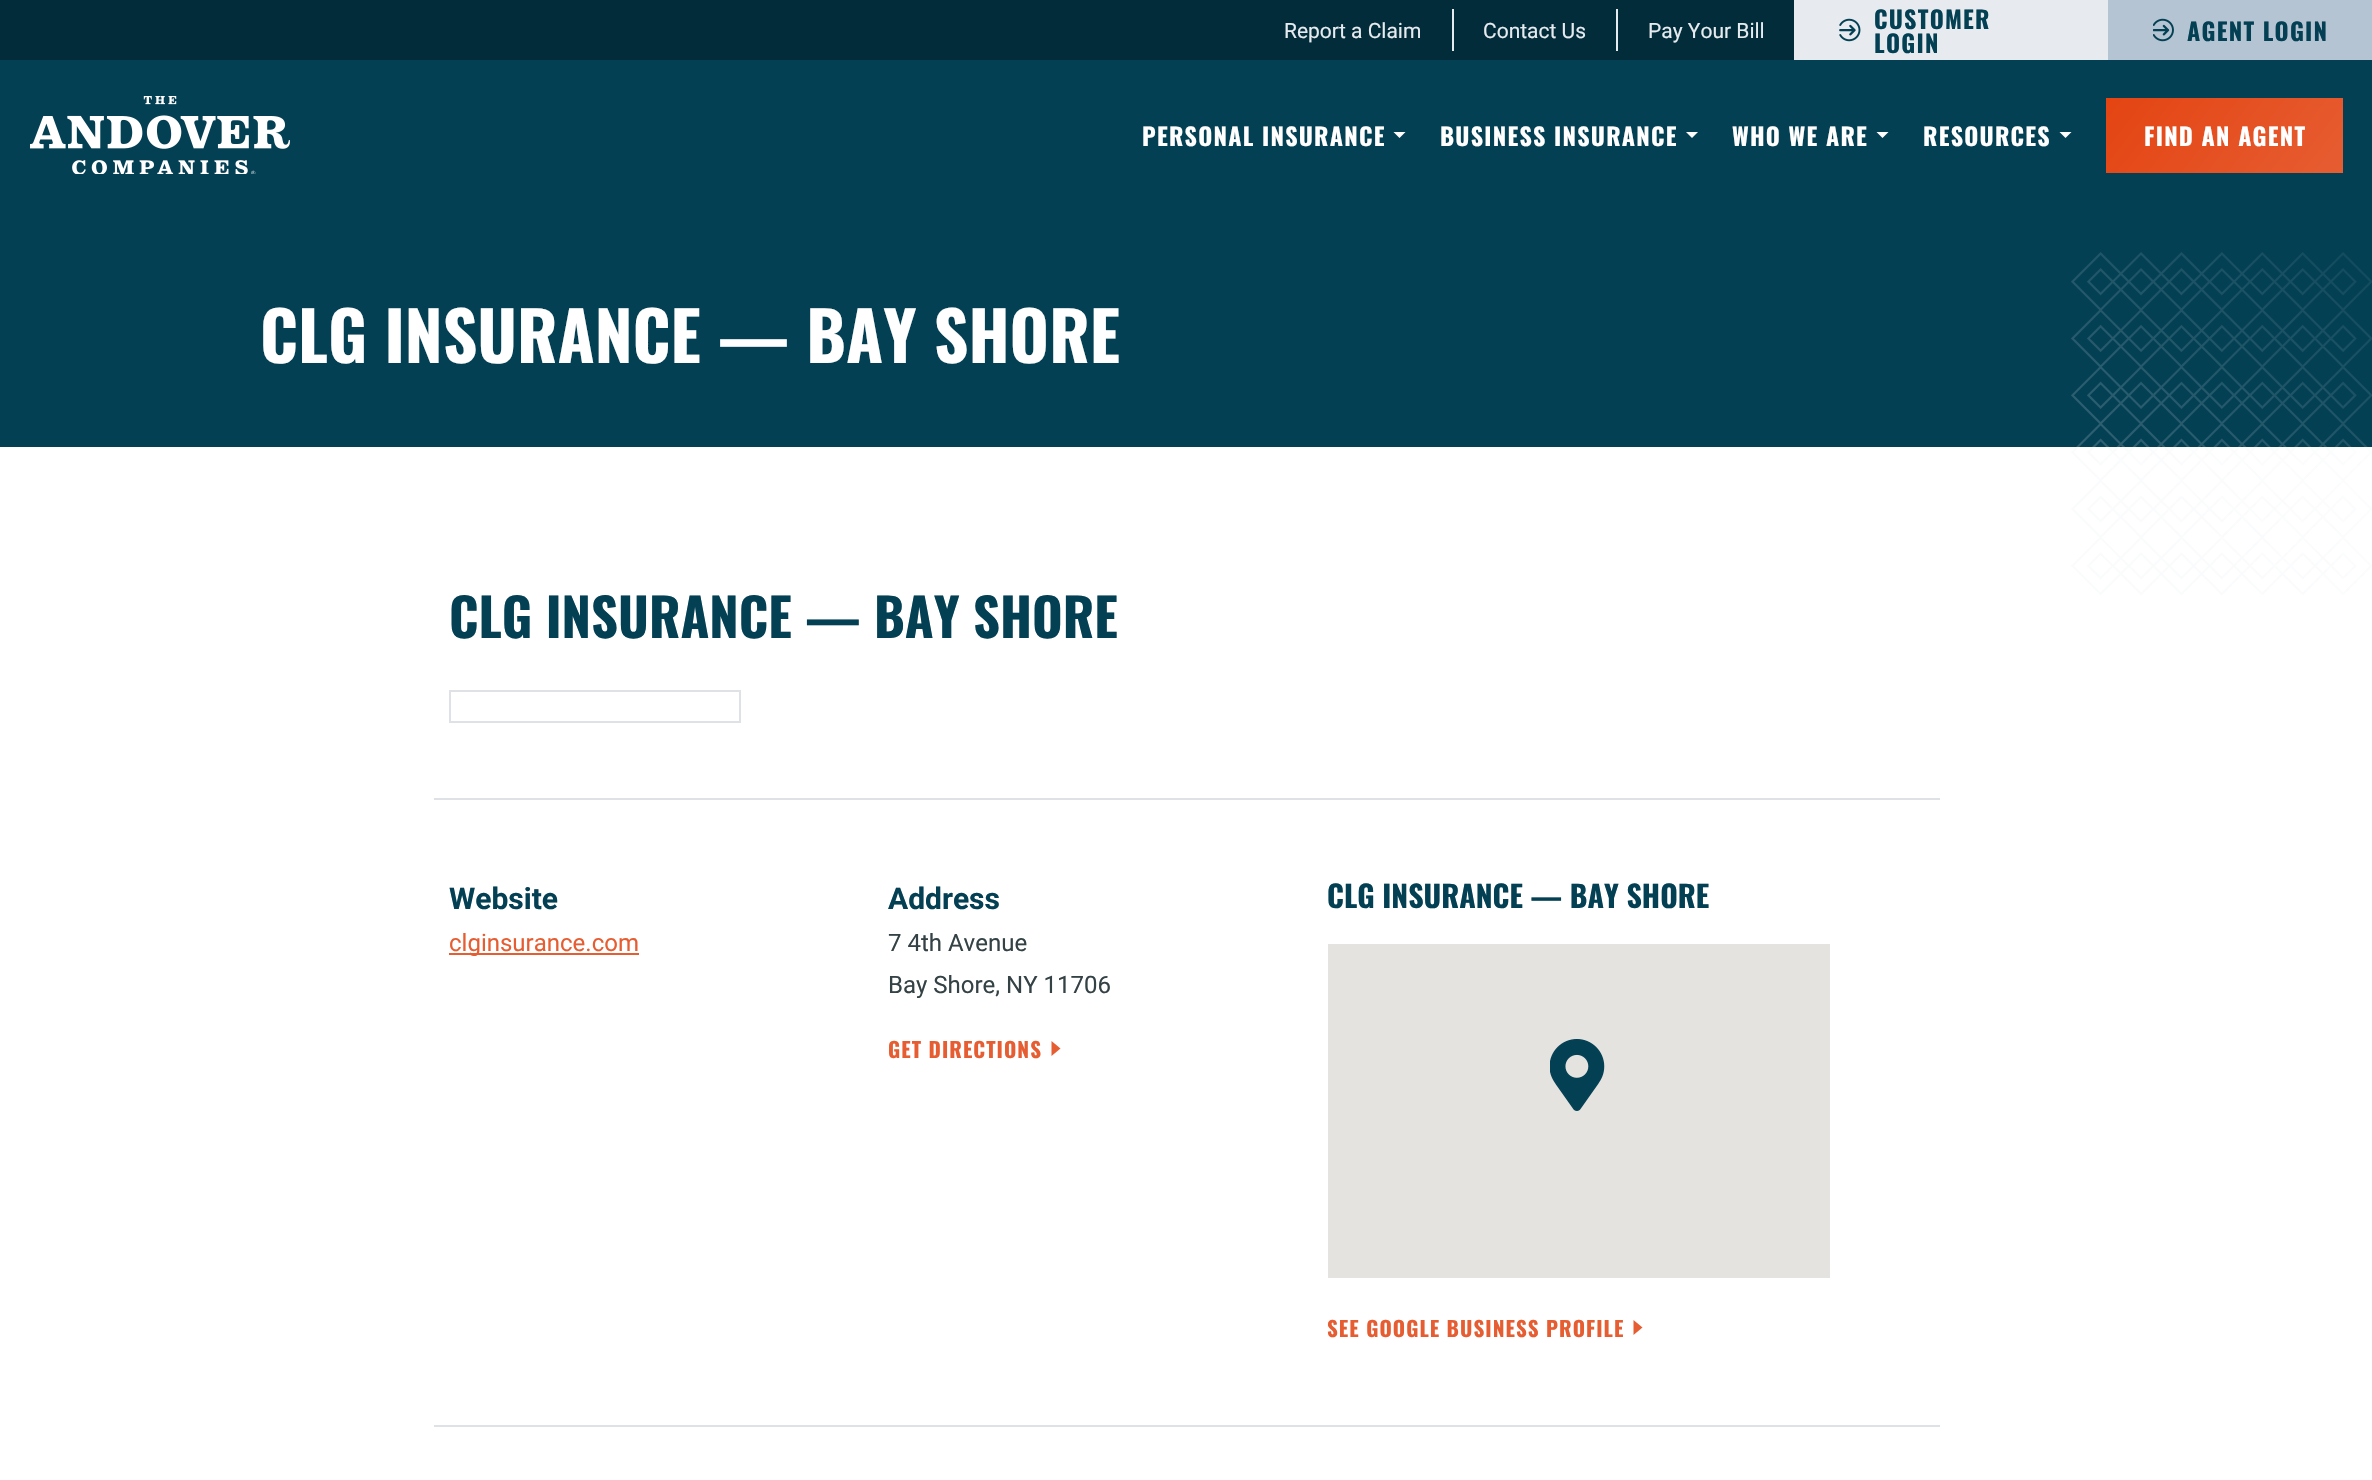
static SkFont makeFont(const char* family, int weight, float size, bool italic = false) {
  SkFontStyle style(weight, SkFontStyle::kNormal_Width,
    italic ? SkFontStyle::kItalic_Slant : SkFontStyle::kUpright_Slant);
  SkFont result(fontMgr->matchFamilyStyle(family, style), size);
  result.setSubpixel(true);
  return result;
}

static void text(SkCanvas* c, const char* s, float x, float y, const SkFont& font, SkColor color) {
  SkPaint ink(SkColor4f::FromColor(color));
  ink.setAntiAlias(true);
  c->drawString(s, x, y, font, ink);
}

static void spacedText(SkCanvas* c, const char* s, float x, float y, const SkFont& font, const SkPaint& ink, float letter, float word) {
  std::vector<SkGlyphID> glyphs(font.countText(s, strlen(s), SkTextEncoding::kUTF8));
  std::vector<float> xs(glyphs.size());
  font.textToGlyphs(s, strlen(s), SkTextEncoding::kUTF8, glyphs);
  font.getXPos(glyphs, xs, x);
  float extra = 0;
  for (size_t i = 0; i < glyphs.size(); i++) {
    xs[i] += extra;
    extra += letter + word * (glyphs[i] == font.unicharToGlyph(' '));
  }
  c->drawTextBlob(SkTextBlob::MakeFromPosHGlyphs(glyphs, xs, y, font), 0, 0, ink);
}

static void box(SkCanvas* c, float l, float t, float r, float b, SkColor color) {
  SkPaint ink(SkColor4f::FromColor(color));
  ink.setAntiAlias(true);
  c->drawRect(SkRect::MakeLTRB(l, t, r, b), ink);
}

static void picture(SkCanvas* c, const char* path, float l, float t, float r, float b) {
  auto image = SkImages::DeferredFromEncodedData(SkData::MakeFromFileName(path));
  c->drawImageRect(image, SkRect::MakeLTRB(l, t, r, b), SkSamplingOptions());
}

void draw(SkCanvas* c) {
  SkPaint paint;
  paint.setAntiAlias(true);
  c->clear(0xffffffff);
  box(c, 0, 0, 1794, 60, 0xff032c3a);
  box(c, 1452, 9, 1454, 51, 0xffe6ebf0);
  SkFont face1 = makeFont("Roboto", 400, 21);
  text(c, "Report a Claim", 1284, 38, face1, 0xffe6ebf0);
  box(c, 1616, 9, 1618, 51, 0xffe6ebf0);
  text(c, "Contact Us", 1483, 38, face1, 0xffe6ebf0);
  text(c, "Pay Your Bill", 1648, 38, face1, 0xffe6ebf0);
  box(c, 1794, 0, 2108, 60, 0xffe7ebf0);
  picture(c, "img_01.png", 1839, 18, 1861, 42);
  SkFont face2 = makeFont("Oswald", 700, 24);
  paint.setColor(0xff044054);
  spacedText(c, "CUSTOMER", 1874, 29, face2, paint, 1.25f, 0);
  spacedText(c, "LOGIN", 1874, 53, face2, paint, 1.25f, 0);
  box(c, 2108, 0, 2372, 60, 0xffb5c4d3);
  picture(c, "img_02.png", 2153, 18, 2174, 42);
  spacedText(c, "AGENT LOGIN", 2187, 41, face2, paint, 1.25f, 0);
  box(c, 0, 60, 2372, 447, 0xff044054);
  picture(c, "img_03.png", 30, 96, 290, 174);
  paint.setColor(0xffffffff);
  spacedText(c, "PERSONAL INSURANCE", 1142, 146, face2, paint, 1.25f, 0);
  c->drawPath(SkPathBuilder().moveTo(1393.5f, 132).lineTo(1405.5f, 132).lineTo(1399.5f, 138).close().detach(), paint);
  spacedText(c, "BUSINESS INSURANCE", 1440, 146, face2, paint, 1.25f, 0);
  c->drawPath(SkPathBuilder().moveTo(1686, 132).lineTo(1698, 132).lineTo(1692, 138).close().detach(), paint);
  spacedText(c, "WHO WE ARE", 1732, 146, face2, paint, 1.25f, 0);
  c->drawPath(SkPathBuilder().moveTo(1876.5f, 132).lineTo(1888.5f, 132).lineTo(1882.5f, 138).close().detach(), paint);
  spacedText(c, "RESOURCES", 1923, 146, face2, paint, 1.25f, 0);
  c->drawPath(SkPathBuilder().moveTo(2059.5f, 132).lineTo(2071.5f, 132).lineTo(2065.5f, 138).close().detach(), paint);
  {
    const SkColor colors[] = {0xffe44412, 0xffe65d32};
    const float stops[] = {0, 1};
    const SkPoint ends[] = {{2133, 63}, {2316, 207}};
    paint.setShader(SkGradientShader::MakeLinear(ends, colors, stops, 2, SkTileMode::kClamp));
    paint.setAlpha(255);
  }
  c->drawRect(SkRect::MakeLTRB(2106, 98, 2343, 173), paint);
  paint.setShader(nullptr);
  paint.setColor(0xffffffff);
  spacedText(c, "FIND AN AGENT", 2144, 146, face2, paint, 1.25f, 0);
  SkFont face3 = makeFont("Oswald", 700, 67.5f);
  text(c, "CLG INSURANCE — BAY SHORE", 260, 363, face3, 0xffffffff);
  picture(c, "img_04.png", 2071, 252, 2372, 595);
  SkFont face4 = makeFont("Oswald", 700, 52.5f);
  text(c, "CLG INSURANCE — BAY SHORE", 449, 638, face4, 0xff044054);
  paint.setStyle(SkPaint::kStroke_Style);
  paint.setStrokeWidth(2);
  paint.setColor(0xffdee2e6);
  c->drawRect(SkRect::MakeLTRB(450, 691, 740, 722), paint);
  box(c, 434, 798, 1940, 800, 0xffdee2e6);
  SkFont face5 = makeFont("Roboto", 700, 30);
  text(c, "Website", 449, 909, face5, 0xff044054);
  box(c, 449, 953, 639, 955, 0xffe65d32);
  SkFont face6 = makeFont("Roboto", 400, 24);
  text(c, "clginsurance.com", 449, 951, face6, 0xffe65d32);
  text(c, "Address", 888, 909, face5, 0xff044054);
  text(c, "7 4th Avenue", 888, 951, face6, 0xff344246);
  text(c, "Bay Shore, NY 11706", 888, 993, face6, 0xff344246);
  SkFont face7 = makeFont("Oswald", 700, 21);
  paint.setStyle(SkPaint::kFill_Style);
  paint.setColor(0xffe65d32);
  spacedText(c, "GET DIRECTIONS", 888, 1058, face7, paint, 1.05f, 0);
  c->drawPath(SkPathBuilder().moveTo(1051.5f, 1056).lineTo(1051.5f, 1041).lineTo(1060.5f, 1048.5f).close().detach(), paint);
  SkFont face8 = makeFont("Oswald", 700, 30);
  text(c, "CLG INSURANCE — BAY SHORE", 1327, 908, face8, 0xff044054);
  box(c, 1328, 944, 1830, 1278, 0xffe5e3df);
  picture(c, "img_05.png", 1550, 1039, 1605, 1111);
  spacedText(c, "SEE GOOGLE BUSINESS PROFILE", 1327, 1337, face7, paint, 1.05f, 0);
  c->drawPath(SkPathBuilder().moveTo(1633.5f, 1335).lineTo(1633.5f, 1320).lineTo(1642.5f, 1327.5f).close().detach(), paint);
  box(c, 434, 1425, 1940, 1427, 0xffdee2e6);
}
